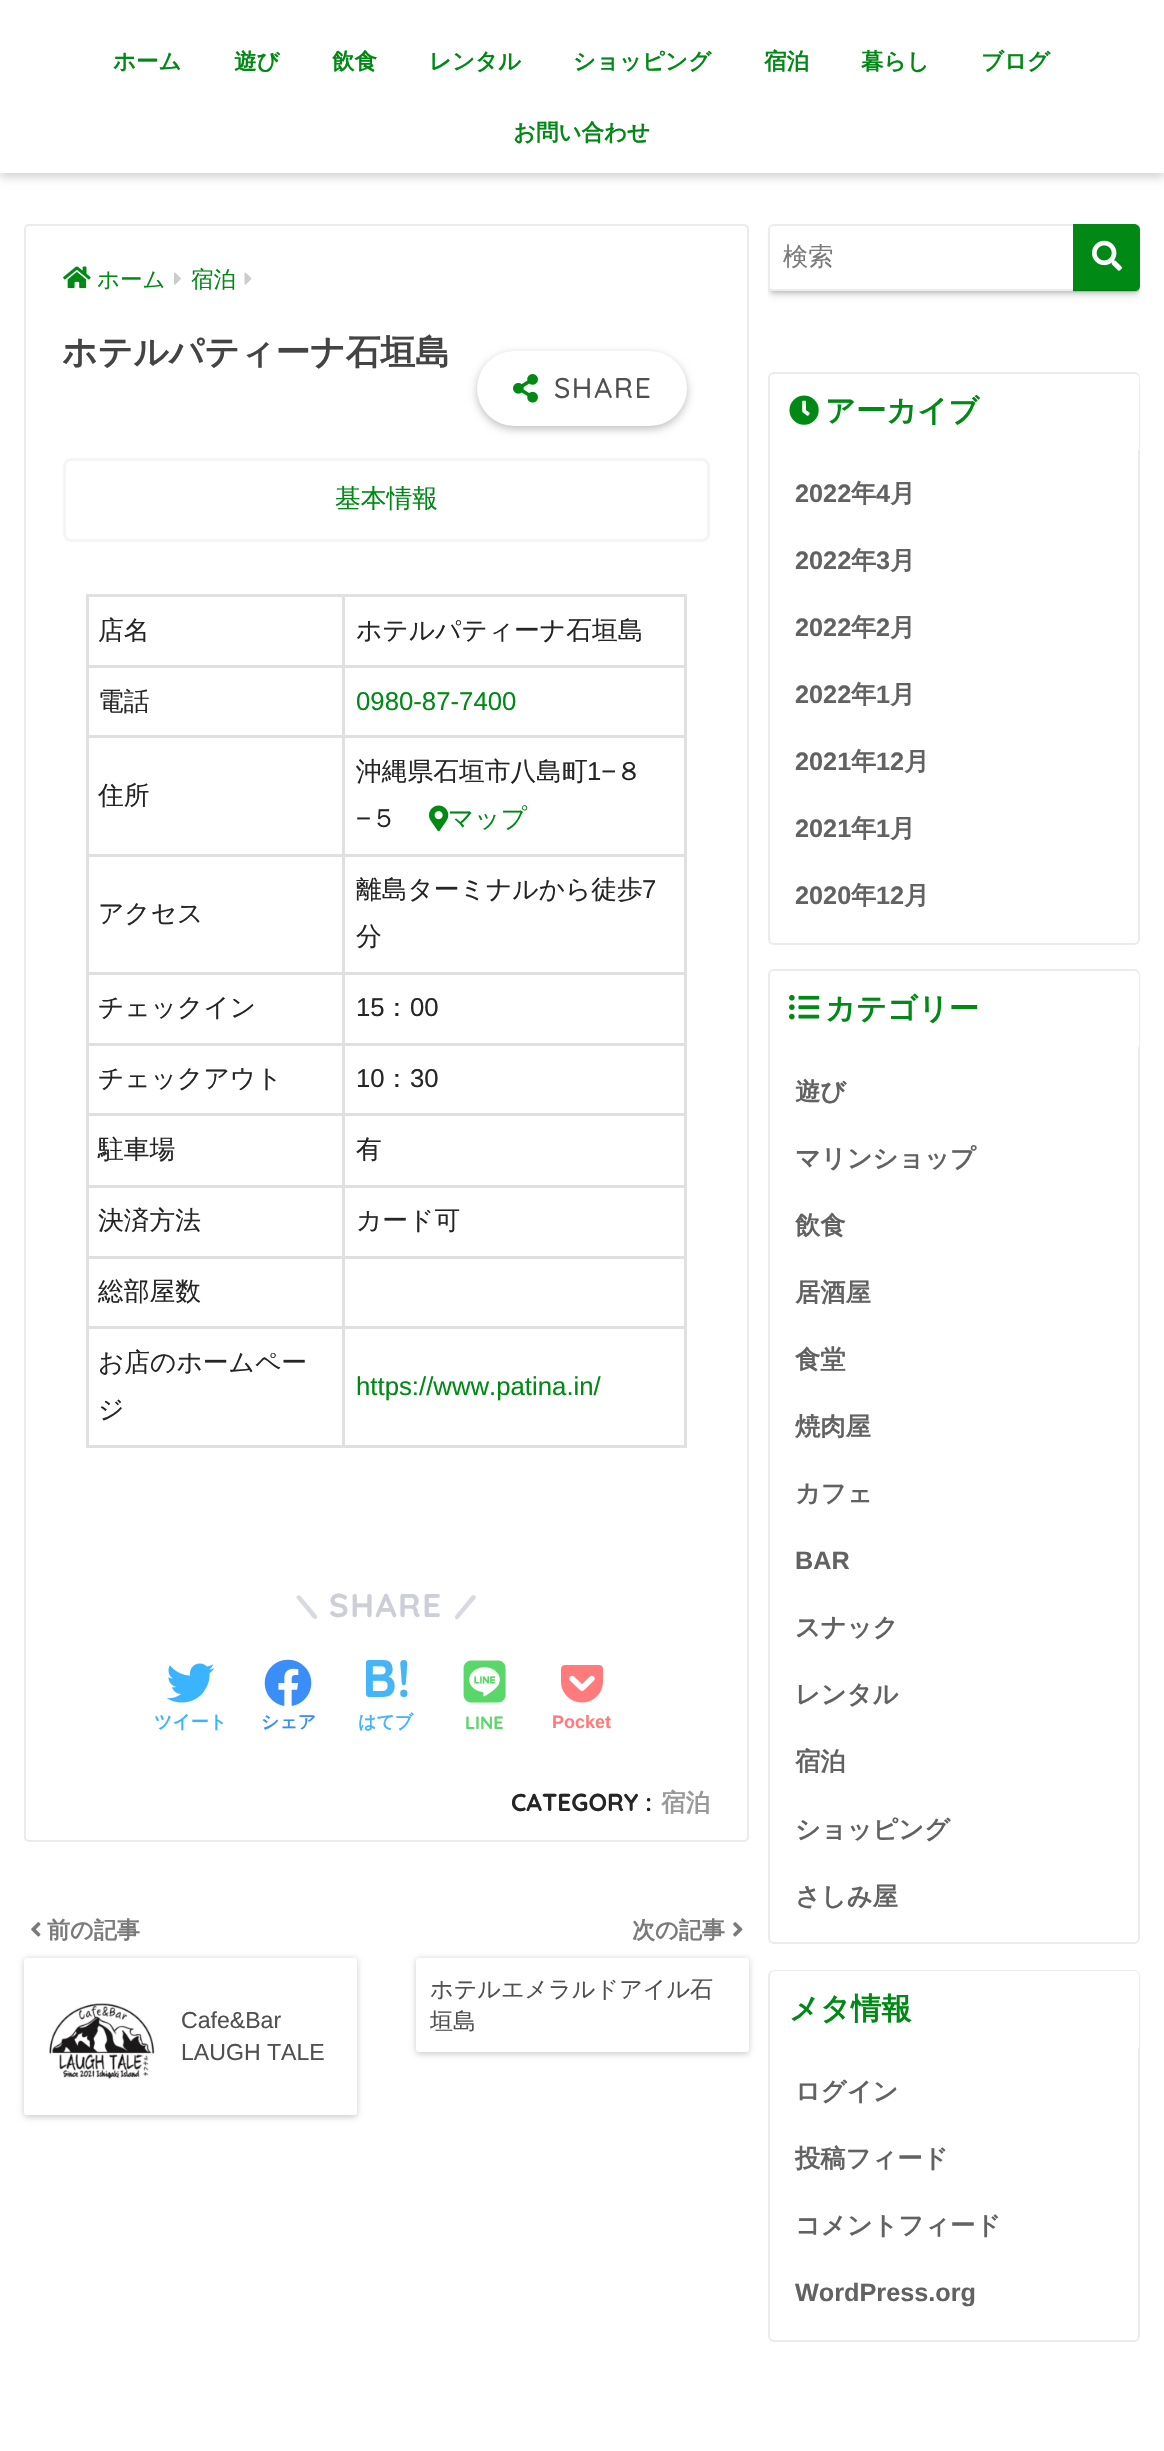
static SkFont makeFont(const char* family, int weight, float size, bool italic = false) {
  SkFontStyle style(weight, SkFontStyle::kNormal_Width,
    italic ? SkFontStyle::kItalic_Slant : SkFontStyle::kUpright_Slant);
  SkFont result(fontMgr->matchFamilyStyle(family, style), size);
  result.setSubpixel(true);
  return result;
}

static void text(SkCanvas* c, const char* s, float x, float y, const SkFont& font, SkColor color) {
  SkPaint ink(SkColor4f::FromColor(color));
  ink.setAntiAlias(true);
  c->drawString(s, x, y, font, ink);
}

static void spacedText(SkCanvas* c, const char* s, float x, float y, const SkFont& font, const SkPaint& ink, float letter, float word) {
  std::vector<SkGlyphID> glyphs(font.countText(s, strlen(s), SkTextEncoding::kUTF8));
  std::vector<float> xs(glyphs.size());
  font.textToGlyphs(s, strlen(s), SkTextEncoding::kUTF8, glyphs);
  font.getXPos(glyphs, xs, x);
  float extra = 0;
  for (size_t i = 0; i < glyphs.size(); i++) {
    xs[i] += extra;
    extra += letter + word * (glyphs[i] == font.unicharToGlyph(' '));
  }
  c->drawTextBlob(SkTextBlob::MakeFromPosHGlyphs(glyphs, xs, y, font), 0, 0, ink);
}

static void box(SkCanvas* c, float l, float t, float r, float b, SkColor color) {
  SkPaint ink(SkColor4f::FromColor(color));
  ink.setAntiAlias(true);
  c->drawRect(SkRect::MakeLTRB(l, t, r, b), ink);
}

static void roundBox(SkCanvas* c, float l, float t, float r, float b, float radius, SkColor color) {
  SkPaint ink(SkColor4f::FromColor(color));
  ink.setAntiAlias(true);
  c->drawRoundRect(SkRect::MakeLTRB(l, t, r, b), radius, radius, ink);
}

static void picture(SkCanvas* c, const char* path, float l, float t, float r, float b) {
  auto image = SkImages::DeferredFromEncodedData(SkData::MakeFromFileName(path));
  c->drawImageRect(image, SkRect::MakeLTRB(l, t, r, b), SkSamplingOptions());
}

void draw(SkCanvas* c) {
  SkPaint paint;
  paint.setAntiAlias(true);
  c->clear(0xffffffff);
  paint.setColor(0x2e000000);
  paint.setMaskFilter(SkMaskFilter::MakeBlur(kNormal_SkBlurStyle, 4.5f));
  c->drawRect(SkRect::MakeLTRB(0, 5, 1164, 177), paint);
  paint.setMaskFilter(nullptr);
  box(c, 0, 0, 1164, 173, 0xffffffff);
  SkFont face1 = makeFont("WenQuanYi Zen Hei", 700, 22.5f);
  text(c, "ホーム", 113, 69, face1, 0xff008914);
  text(c, "遊び", 234, 69, face1, 0xff008914);
  text(c, "飲食", 332, 69, face1, 0xff008914);
  text(c, "レンタル", 429, 69, face1, 0xff008914);
  text(c, "ショッピング", 573, 69, face1, 0xff008914);
  text(c, "宿泊", 764, 69, face1, 0xff008914);
  text(c, "暮らし", 861, 69, face1, 0xff008914);
  text(c, "ブログ", 981, 69, face1, 0xff008914);
  text(c, "お問い合わせ", 513, 140, face1, 0xff008914);
  paint.setStyle(SkPaint::kStroke_Style);
  paint.setStrokeWidth(2);
  paint.setColor(0xffebebeb);
  c->drawRoundRect(SkRect::MakeLTRB(25, 225, 748, 1841), 4, 4, paint);
  picture(c, "img_01.png", 63, 266, 91, 289);
  SkFont face2 = makeFont("WenQuanYi Zen Hei", 500, 22.5f);
  text(c, "ホーム", 97, 287, face2, 0xff008914);
  picture(c, "img_02.png", 174, 272, 181, 285);
  text(c, "宿泊", 191, 287, face2, 0xff008914);
  picture(c, "img_03.png", 244, 272, 252, 285);
  SkFont face3 = makeFont("WenQuanYi Zen Hei", 700, 34.75f);
  text(c, "ホテルパティーナ石垣島", 62, 364, face3, 0xff444444);
  paint.setStyle(SkPaint::kFill_Style);
  paint.setColor(0x40000000);
  paint.setMaskFilter(SkMaskFilter::MakeBlur(kNormal_SkBlurStyle, 4.5f));
  c->drawRoundRect(SkRect::MakeLTRB(477, 354, 687, 429), 37.5f, 37.5f, paint);
  paint.setMaskFilter(nullptr);
  roundBox(c, 477, 351, 687, 426, 37.5f, 0xffffffff);
  picture(c, "img_04.png", 513, 374, 538, 403);
  SkFont face4 = makeFont("Quicksand", 500, 28.5f);
  paint.setColor(0xff505050);
  spacedText(c, "SHARE", 554, 398, face4, paint, 1.5f, 0);
  paint.setStyle(SkPaint::kStroke_Style);
  paint.setStrokeWidth(3);
  paint.setColor(0xfff5f5f5);
  c->drawRoundRect(SkRect::MakeLTRB(64.5f, 459.5f, 708.5f, 540.5f), 6.5f, 6.5f, paint);
  SkFont face5 = makeFont("WenQuanYi Zen Hei", 500, 25.75f);
  text(c, "基本情報", 335, 507, face5, 0xff008914);
  box(c, 86, 594, 687, 597, 0xffe0e0e0);
  box(c, 684, 594, 687, 1448, 0xffe0e0e0);
  box(c, 86, 1445, 687, 1448, 0xffe0e0e0);
  box(c, 86, 594, 89, 1448, 0xffe0e0e0);
  box(c, 86, 665, 687, 668, 0xffe0e0e0);
  text(c, "店名", 98, 639, face5, 0xff252525);
  text(c, "ホテルパティーナ石垣島", 356, 639, face5, 0xff252525);
  box(c, 86, 735, 687, 738, 0xffe0e0e0);
  text(c, "電話", 98, 710, face5, 0xff252525);
  SkFont face6 = makeFont("Liberation Sans", 400, 25.75f);
  text(c, "0980-87-7400", 356, 710, face6, 0xff008914);
  box(c, 86, 854, 687, 857, 0xffe0e0e0);
  text(c, "住所", 98, 804, face5, 0xff252525);
  text(c, "沖縄県石垣市八島町", 356, 780, face5, 0xff252525);
  text(c, "1−", 587, 780, face6, 0xff252525);
  text(c, "８", 616, 780, face5, 0xff252525);
  text(c, "−", 356, 827, face6, 0xff252525);
  text(c, "５", 371, 827, face5, 0xff252525);
  picture(c, "img_05.png", 429, 805, 449, 832);
  text(c, "マップ", 448, 827, face5, 0xff008914);
  box(c, 86, 972, 687, 975, 0xffe0e0e0);
  text(c, "アクセス", 98, 922, face5, 0xff252525);
  text(c, "離島ターミナルから徒歩", 356, 898, face5, 0xff252525);
  text(c, "7", 642, 898, face6, 0xff252525);
  text(c, "分", 356, 945, face5, 0xff252525);
  box(c, 86, 1043, 687, 1046, 0xffe0e0e0);
  text(c, "チェックイン", 98, 1016, face5, 0xff252525);
  text(c, "15", 356, 1016, face6, 0xff252525);
  text(c, "：", 384, 1016, face5, 0xff252525);
  text(c, "00", 410, 1016, face6, 0xff252525);
  box(c, 86, 1113, 687, 1116, 0xffe0e0e0);
  text(c, "チェックアウト", 98, 1087, face5, 0xff252525);
  text(c, "10", 356, 1087, face6, 0xff252525);
  text(c, "：", 384, 1087, face5, 0xff252525);
  text(c, "30", 410, 1087, face6, 0xff252525);
  box(c, 86, 1185, 687, 1188, 0xffe0e0e0);
  text(c, "駐車場", 98, 1158, face5, 0xff252525);
  text(c, "有", 356, 1158, face5, 0xff252525);
  box(c, 86, 1256, 687, 1259, 0xffe0e0e0);
  text(c, "決済方法", 98, 1229, face5, 0xff252525);
  text(c, "カード可", 356, 1229, face5, 0xff252525);
  box(c, 86, 1326, 687, 1329, 0xffe0e0e0);
  text(c, "総部屋数", 98, 1300, face5, 0xff252525);
  box(c, 342, 594, 345, 1448, 0xffe0e0e0);
  text(c, "お店のホームペー", 98, 1371, face5, 0xff252525);
  text(c, "ジ", 98, 1418, face5, 0xff252525);
  text(c, "https://www.patina.in/", 356, 1395, face6, 0xff008914);
  paint.setStyle(SkPaint::kFill_Style);
  paint.setColor(0xffd8dae1);
  c->drawPath(SkPathBuilder().moveTo(300.5f, 1596).lineTo(314, 1612).cubicTo(315, 1613.5f, 319, 1616.5f, 316.5f, 1618.5f).cubicTo(314, 1620.5f, 311.5f, 1616.5f, 310.5f, 1615).lineTo(296.5f, 1598).cubicTo(295.5f, 1596, 299, 1594, 300.5f, 1596).close().detach(), paint);
  SkFont face7 = makeFont("Quicksand", 700, 33);
  paint.setColor(0xffcccfd7);
  spacedText(c, "SHARE", 329, 1617, face7, paint, 1.5f, 0);
  paint.setColor(0xffd8dae1);
  c->drawPath(SkPathBuilder().moveTo(455.5f, 1615.5f).lineTo(469, 1599).cubicTo(470, 1598, 472.5f, 1593.5f, 475, 1595.5f).cubicTo(477.5f, 1597.5f, 473.5f, 1601, 472.5f, 1602).lineTo(458, 1619).cubicTo(456, 1620, 454, 1617.5f, 455.5f, 1615.5f).close().detach(), paint);
  picture(c, "img_06.png", 166, 1663, 215, 1703);
  SkFont face8 = makeFont("WenQuanYi Zen Hei", 700, 18);
  text(c, "ツイート", 154, 1728, face8, 0xff3ab4ff);
  picture(c, "img_07.png", 264, 1659, 312, 1706);
  text(c, "シェア", 261, 1728, face8, 0xff3b8df7);
  SkFont face9 = makeFont("Quicksand", 700, 53);
  text(c, "B!", 362, 1697, face9, 0xff45b5f7);
  text(c, "はてブ", 358, 1728, face8, 0xff45b5f7);
  picture(c, "img_08.png", 463, 1660, 506, 1703);
  SkFont face10 = makeFont("Quicksand", 700, 18);
  text(c, "LINE", 465, 1729, face10, 0xff59d869);
  picture(c, "img_09.png", 561, 1665, 603, 1703);
  SkFont face11 = makeFont("Liberation Sans", 700, 18);
  text(c, "Pocket", 552, 1728, face11, 0xffff7b7b);
  SkFont face12 = makeFont("Quicksand", 700, 24.5f);
  text(c, "CATEGORY :", 511, 1811, face12, 0xff252525);
  SkFont face13 = makeFont("WenQuanYi Zen Hei", 700, 24.5f);
  text(c, "宿泊", 661, 1811, face13, 0xff999999);
  picture(c, "img_10.png", 31, 1922, 41, 1937);
  SkFont face14 = makeFont("WenQuanYi Zen Hei", 700, 23.1f);
  text(c, "前の記事", 47, 1938, face14, 0xff7a7a7a);
  paint.setColor(0x33000000);
  paint.setMaskFilter(SkMaskFilter::MakeBlur(kNormal_SkBlurStyle, 3));
  c->drawRoundRect(SkRect::MakeLTRB(24, 1959, 357, 2117), 3, 3, paint);
  paint.setMaskFilter(nullptr);
  roundBox(c, 24, 1958, 357, 2115, 3, 0xffffffff);
  picture(c, "img_11.png", 49, 2003, 155, 2079);
  SkFont face15 = makeFont("Liberation Sans", 400, 23.1f);
  text(c, "Cafe&Bar", 181, 2028, face15, 0xff505050);
  text(c, "LAUGH TALE", 181, 2060, face15, 0xff505050);
  text(c, "次の記事", 632, 1938, face14, 0xff7a7a7a);
  picture(c, "img_12.png", 733, 1922, 743, 1937);
  paint.setMaskFilter(SkMaskFilter::MakeBlur(kNormal_SkBlurStyle, 3));
  c->drawRoundRect(SkRect::MakeLTRB(416, 1959, 749, 2054), 3, 3, paint);
  paint.setMaskFilter(nullptr);
  roundBox(c, 416, 1958, 749, 2052, 3, 0xffffffff);
  SkFont face16 = makeFont("WenQuanYi Zen Hei", 500, 23.1f);
  text(c, "ホテルエメラルドアイル石", 430, 1997, face16, 0xff505050);
  text(c, "垣島", 430, 2029, face16, 0xff505050);
  paint.setColor(0x26000000);
  paint.setMaskFilter(SkMaskFilter::MakeBlur(kNormal_SkBlurStyle, 2));
  c->drawRoundRect(SkRect::MakeLTRB(771, 231, 1137, 293), 1.5f, 1.5f, paint);
  paint.setMaskFilter(nullptr);
  c->save();
  c->clipPath(SkPathBuilder().moveTo(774, 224).lineTo(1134, 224).cubicTo(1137.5f, 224, 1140, 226.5f, 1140, 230).lineTo(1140, 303).cubicTo(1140, 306.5f, 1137.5f, 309, 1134, 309).lineTo(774, 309).cubicTo(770.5f, 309, 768, 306.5f, 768, 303).lineTo(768, 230).cubicTo(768, 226.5f, 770.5f, 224, 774, 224).close().detach(), true);
  paint.setMaskFilter(SkMaskFilter::MakeBlur(kNormal_SkBlurStyle, 4));
  c->drawRoundRect(SkRect::MakeLTRB(768, 227, 1140, 294), 5, 5, paint);
  paint.setMaskFilter(nullptr);
  c->restore();
  paint.setColor(0xffffffff);
  c->drawPath(SkPathBuilder().moveTo(774, 224).lineTo(1134, 224).cubicTo(1137.5f, 224, 1140, 226.5f, 1140, 230).lineTo(1140, 286).cubicTo(1140, 289, 1138, 291, 1135, 291).lineTo(773, 291).cubicTo(770, 291, 768, 289, 768, 286).lineTo(768, 230).cubicTo(768, 226.5f, 770.5f, 224, 774, 224).close().detach(), paint);
  paint.setColor(0xffececec);
  c->drawPath(SkPathBuilder(SkPathFillType::kEvenOdd).moveTo(774, 224).cubicTo(771, 224, 768, 227, 768, 230).lineTo(768, 286).cubicTo(768, 289, 770, 291, 773, 291).lineTo(1135, 291).cubicTo(1138, 291, 1140, 289, 1140, 286).lineTo(1140, 230).cubicTo(1140, 227, 1137, 224, 1134, 224).close().moveTo(773, 226).cubicTo(771, 226, 770, 227, 770, 229).lineTo(770, 286).cubicTo(770, 288, 771, 289, 773, 289).lineTo(1135, 289).cubicTo(1137, 289, 1138, 288, 1138, 286).lineTo(1138, 229).cubicTo(1138, 227, 1137, 226, 1135, 226).close().detach(), paint);
  SkFont face17 = makeFont("WenQuanYi Zen Hei", 500, 25.25f);
  text(c, "検索", 783, 265, face17, 0xff7a7a7a);
  paint.setColor(0xff008914);
  c->drawPath(SkPathBuilder().moveTo(1073, 224).lineTo(1134, 224).cubicTo(1137.5f, 224, 1140, 226.5f, 1140, 230).lineTo(1140, 286).cubicTo(1140, 289, 1138, 291, 1135, 291).lineTo(1073, 291).close().detach(), paint);
  box(c, 1073, 290, 1139, 292, 0x1a000000);
  picture(c, "img_13.png", 1092, 240, 1122, 271);
  paint.setStyle(SkPaint::kStroke_Style);
  paint.setStrokeWidth(2);
  paint.setColor(0xffebebeb);
  c->drawRoundRect(SkRect::MakeLTRB(769, 373, 1139, 944), 5, 5, paint);
  paint.setStyle(SkPaint::kFill_Style);
  paint.setColor(0xffffffff);
  c->drawPath(SkPathBuilder().moveTo(775, 374).lineTo(1134, 374).cubicTo(1137, 374, 1139, 376, 1139, 379).lineTo(1139, 450).lineTo(770, 450).lineTo(770, 379).cubicTo(770, 376, 772, 374, 775, 374).close().detach(), paint);
  picture(c, "img_14.png", 789, 395, 819, 425);
  SkFont face18 = makeFont("WenQuanYi Zen Hei", 700, 30.25f);
  text(c, "アーカイブ", 825, 421, face18, 0xff008914);
  SkFont face19 = makeFont("Liberation Sans", 700, 25.25f);
  text(c, "2022", 795, 502, face19, 0xff626262);
  SkFont face20 = makeFont("WenQuanYi Zen Hei", 700, 25.25f);
  text(c, "年", 851, 502, face20, 0xff626262);
  text(c, "4", 876, 502, face19, 0xff626262);
  text(c, "月", 890, 502, face20, 0xff626262);
  text(c, "2022", 795, 569, face19, 0xff626262);
  text(c, "年", 851, 569, face20, 0xff626262);
  text(c, "3", 876, 569, face19, 0xff626262);
  text(c, "月", 890, 569, face20, 0xff626262);
  text(c, "2022", 795, 636, face19, 0xff626262);
  text(c, "年", 851, 636, face20, 0xff626262);
  text(c, "2", 876, 636, face19, 0xff626262);
  text(c, "月", 890, 636, face20, 0xff626262);
  text(c, "2022", 795, 703, face19, 0xff626262);
  text(c, "年", 851, 703, face20, 0xff626262);
  text(c, "1", 876, 703, face19, 0xff626262);
  text(c, "月", 890, 703, face20, 0xff626262);
  text(c, "2021", 795, 770, face19, 0xff626262);
  text(c, "年", 851, 770, face20, 0xff626262);
  text(c, "12", 876, 770, face19, 0xff626262);
  text(c, "月", 904, 770, face20, 0xff626262);
  text(c, "2021", 795, 837, face19, 0xff626262);
  text(c, "年", 851, 837, face20, 0xff626262);
  text(c, "1", 876, 837, face19, 0xff626262);
  text(c, "月", 890, 837, face20, 0xff626262);
  text(c, "2020", 795, 904, face19, 0xff626262);
  text(c, "年", 851, 904, face20, 0xff626262);
  text(c, "12", 876, 904, face19, 0xff626262);
  text(c, "月", 904, 904, face20, 0xff626262);
  paint.setStyle(SkPaint::kStroke_Style);
  paint.setColor(0xffebebeb);
  c->drawRoundRect(SkRect::MakeLTRB(769, 970, 1139, 1943), 5, 5, paint);
  paint.setStyle(SkPaint::kFill_Style);
  paint.setColor(0xffffffff);
  c->drawPath(SkPathBuilder().moveTo(775, 971).lineTo(1134, 971).cubicTo(1137, 971, 1139, 973, 1139, 976).lineTo(1139, 1047).lineTo(770, 1047).lineTo(770, 976).cubicTo(770, 973, 772, 971, 775, 971).close().detach(), paint);
  picture(c, "img_15.png", 789, 994, 820, 1020);
  text(c, "カテゴリー", 825, 1019, face18, 0xff008914);
  text(c, "遊び", 795, 1100, face20, 0xff626262);
  text(c, "マリンショップ", 795, 1167, face20, 0xff626262);
  text(c, "飲食", 795, 1234, face20, 0xff626262);
  text(c, "居酒屋", 795, 1301, face20, 0xff626262);
  text(c, "食堂", 795, 1368, face20, 0xff626262);
  text(c, "焼肉屋", 795, 1435, face20, 0xff626262);
  text(c, "カフェ", 795, 1502, face20, 0xff626262);
  text(c, "BAR", 795, 1569, face19, 0xff626262);
  text(c, "スナック", 795, 1636, face20, 0xff626262);
  text(c, "レンタル", 795, 1703, face20, 0xff626262);
  text(c, "宿泊", 795, 1770, face20, 0xff626262);
  text(c, "ショッピング", 795, 1838, face20, 0xff626262);
  text(c, "さしみ屋", 795, 1905, face20, 0xff626262);
  paint.setStyle(SkPaint::kStroke_Style);
  paint.setColor(0xffebebeb);
  c->drawRoundRect(SkRect::MakeLTRB(769, 1971, 1139, 2341), 5, 5, paint);
  paint.setStyle(SkPaint::kFill_Style);
  paint.setColor(0xffffffff);
  c->drawPath(SkPathBuilder().moveTo(775, 1971).lineTo(1134, 1971).cubicTo(1137, 1971, 1139, 1973, 1139, 1976).lineTo(1139, 2048).lineTo(770, 2048).lineTo(770, 1976).cubicTo(770, 1973, 772, 1971, 775, 1971).close().detach(), paint);
  text(c, "メタ情報", 789, 2019, face18, 0xff008914);
  text(c, "ログイン", 795, 2100, face20, 0xff626262);
  text(c, "投稿フィード", 795, 2167, face20, 0xff626262);
  text(c, "コメントフィード", 795, 2234, face20, 0xff626262);
  text(c, "WordPress.org", 795, 2301, face19, 0xff626262);
}
